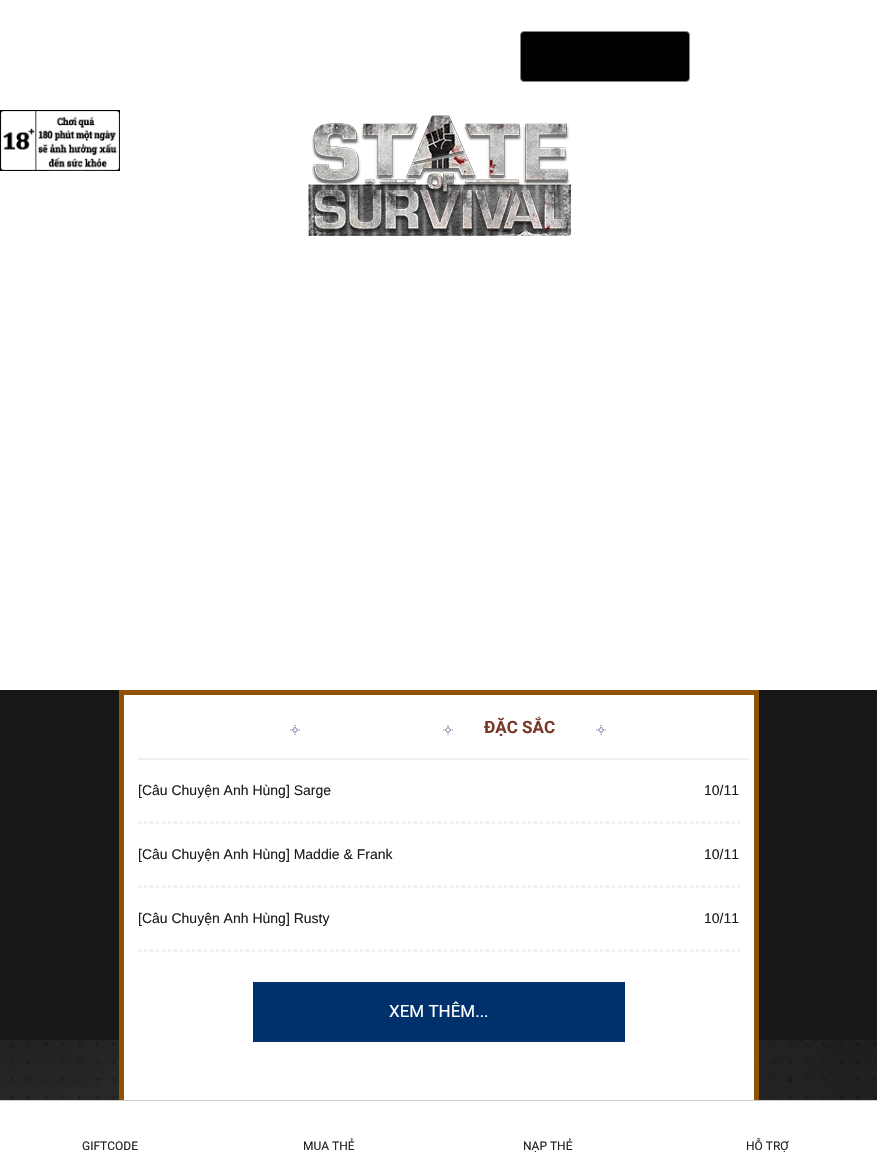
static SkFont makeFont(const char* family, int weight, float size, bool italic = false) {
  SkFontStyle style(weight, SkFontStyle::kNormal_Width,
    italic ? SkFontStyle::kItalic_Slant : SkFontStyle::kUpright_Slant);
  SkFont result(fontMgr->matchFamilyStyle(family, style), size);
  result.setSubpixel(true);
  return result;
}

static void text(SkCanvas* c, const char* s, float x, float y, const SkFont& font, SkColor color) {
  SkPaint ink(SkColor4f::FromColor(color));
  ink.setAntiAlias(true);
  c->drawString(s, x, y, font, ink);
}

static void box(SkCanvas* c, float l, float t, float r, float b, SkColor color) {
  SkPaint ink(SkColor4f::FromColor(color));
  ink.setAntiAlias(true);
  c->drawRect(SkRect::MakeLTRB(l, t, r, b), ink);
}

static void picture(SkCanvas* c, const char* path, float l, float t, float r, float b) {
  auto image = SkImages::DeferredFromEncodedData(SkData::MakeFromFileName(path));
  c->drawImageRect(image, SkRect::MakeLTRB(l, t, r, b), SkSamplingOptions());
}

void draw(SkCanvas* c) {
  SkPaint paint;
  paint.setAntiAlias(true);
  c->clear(0xffffffff);
  picture(c, "img_01.png", 0, 110, 120, 171);
  paint.setColor(0xff000000);
  c->drawRoundRect(SkRect::MakeLTRB(520.5f, 31.5f, 689.5f, 81.5f), 3.5f, 3.5f, paint);
  paint.setStyle(SkPaint::kStroke_Style);
  paint.setStrokeWidth(1);
  paint.setColor(0xff868686);
  c->drawRoundRect(SkRect::MakeLTRB(520.5f, 31.5f, 689.5f, 81.5f), 3.5f, 3.5f, paint);
  picture(c, "img_02.png", 308, 115, 571, 236);
  picture(c, "img_03.png", 403, 483, 412, 493);
  picture(c, "img_04.png", 430, 501, 457, 542);
  box(c, 0, 690, 877, 1040, 0xff171717);
  picture(c, "img_05.png", 0, 1040, 877, 1100);
  box(c, 124, 695, 754, 1100, 0xffffffff);
  paint.setStrokeWidth(5);
  paint.setColor(0xff905303);
  c->drawRect(SkRect::MakeLTRB(121.5f, 692.5f, 756.5f, 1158.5f), paint);
  box(c, 138, 758, 749, 760, 0xffeeeef3);
  picture(c, "img_06.png", 290, 725, 300, 735);
  picture(c, "img_07.png", 443, 725, 453, 735);
  SkFont face1 = makeFont("Roboto", 700, 17);
  text(c, "ĐẶC SẮC", 484, 733, face1, 0xff7a392a);
  picture(c, "img_06.png", 596, 725, 606, 735);
  paint.setStrokeWidth(3);
  paint.setColor(0xffeeeff4);
  paint.setPathEffect(SkDashPathEffect::Make({{3, 3}}, 0));
  c->drawPath(SkPathBuilder().moveTo(138, 822.5f).lineTo(740, 822.5f).detach(), paint);
  paint.setPathEffect(nullptr);
  SkFont face2 = makeFont("Liberation Sans", 400, 14);
  text(c, "[Câu Chuyện Anh Hùng] Sarge", 138, 795, face2, 0xff1b1c1c);
  text(c, "10/11", 704, 795, face2, 0xff1b1c1c);
  paint.setPathEffect(SkDashPathEffect::Make({{3, 3}}, 0));
  c->drawPath(SkPathBuilder().moveTo(138, 886.5f).lineTo(740, 886.5f).detach(), paint);
  paint.setPathEffect(nullptr);
  text(c, "[Câu Chuyện Anh Hùng] Maddie & Frank", 138, 859, face2, 0xff1b1c1c);
  text(c, "10/11", 704, 859, face2, 0xff1b1c1c);
  paint.setPathEffect(SkDashPathEffect::Make({{3, 3}}, 0));
  c->drawPath(SkPathBuilder().moveTo(138, 950.5f).lineTo(740, 950.5f).detach(), paint);
  paint.setPathEffect(nullptr);
  text(c, "[Câu Chuyện Anh Hùng] Rusty", 138, 923, face2, 0xff1b1c1c);
  text(c, "10/11", 704, 923, face2, 0xff1b1c1c);
  box(c, 253, 982, 625, 1042, 0xff00316d);
  SkFont face3 = makeFont("Roboto", 400, 17);
  text(c, "XEM THÊM...", 389, 1017, face3, 0xffffffff);
  box(c, 119, 1101, 759, 1156, 0xffffffff);
  box(c, 0, 1100, 877, 1101, 0xffcecece);
  SkFont face4 = makeFont("Roboto", 400, 12);
  text(c, "GIFTCODE", 82, 1150, face4, 0xff212121);
  text(c, "MUA THẺ", 303, 1150, face4, 0xff212121);
  text(c, "NẠP THẺ", 523, 1150, face4, 0xff212121);
  text(c, "HỖ TRỢ", 746, 1150, face4, 0xff212121);
}
